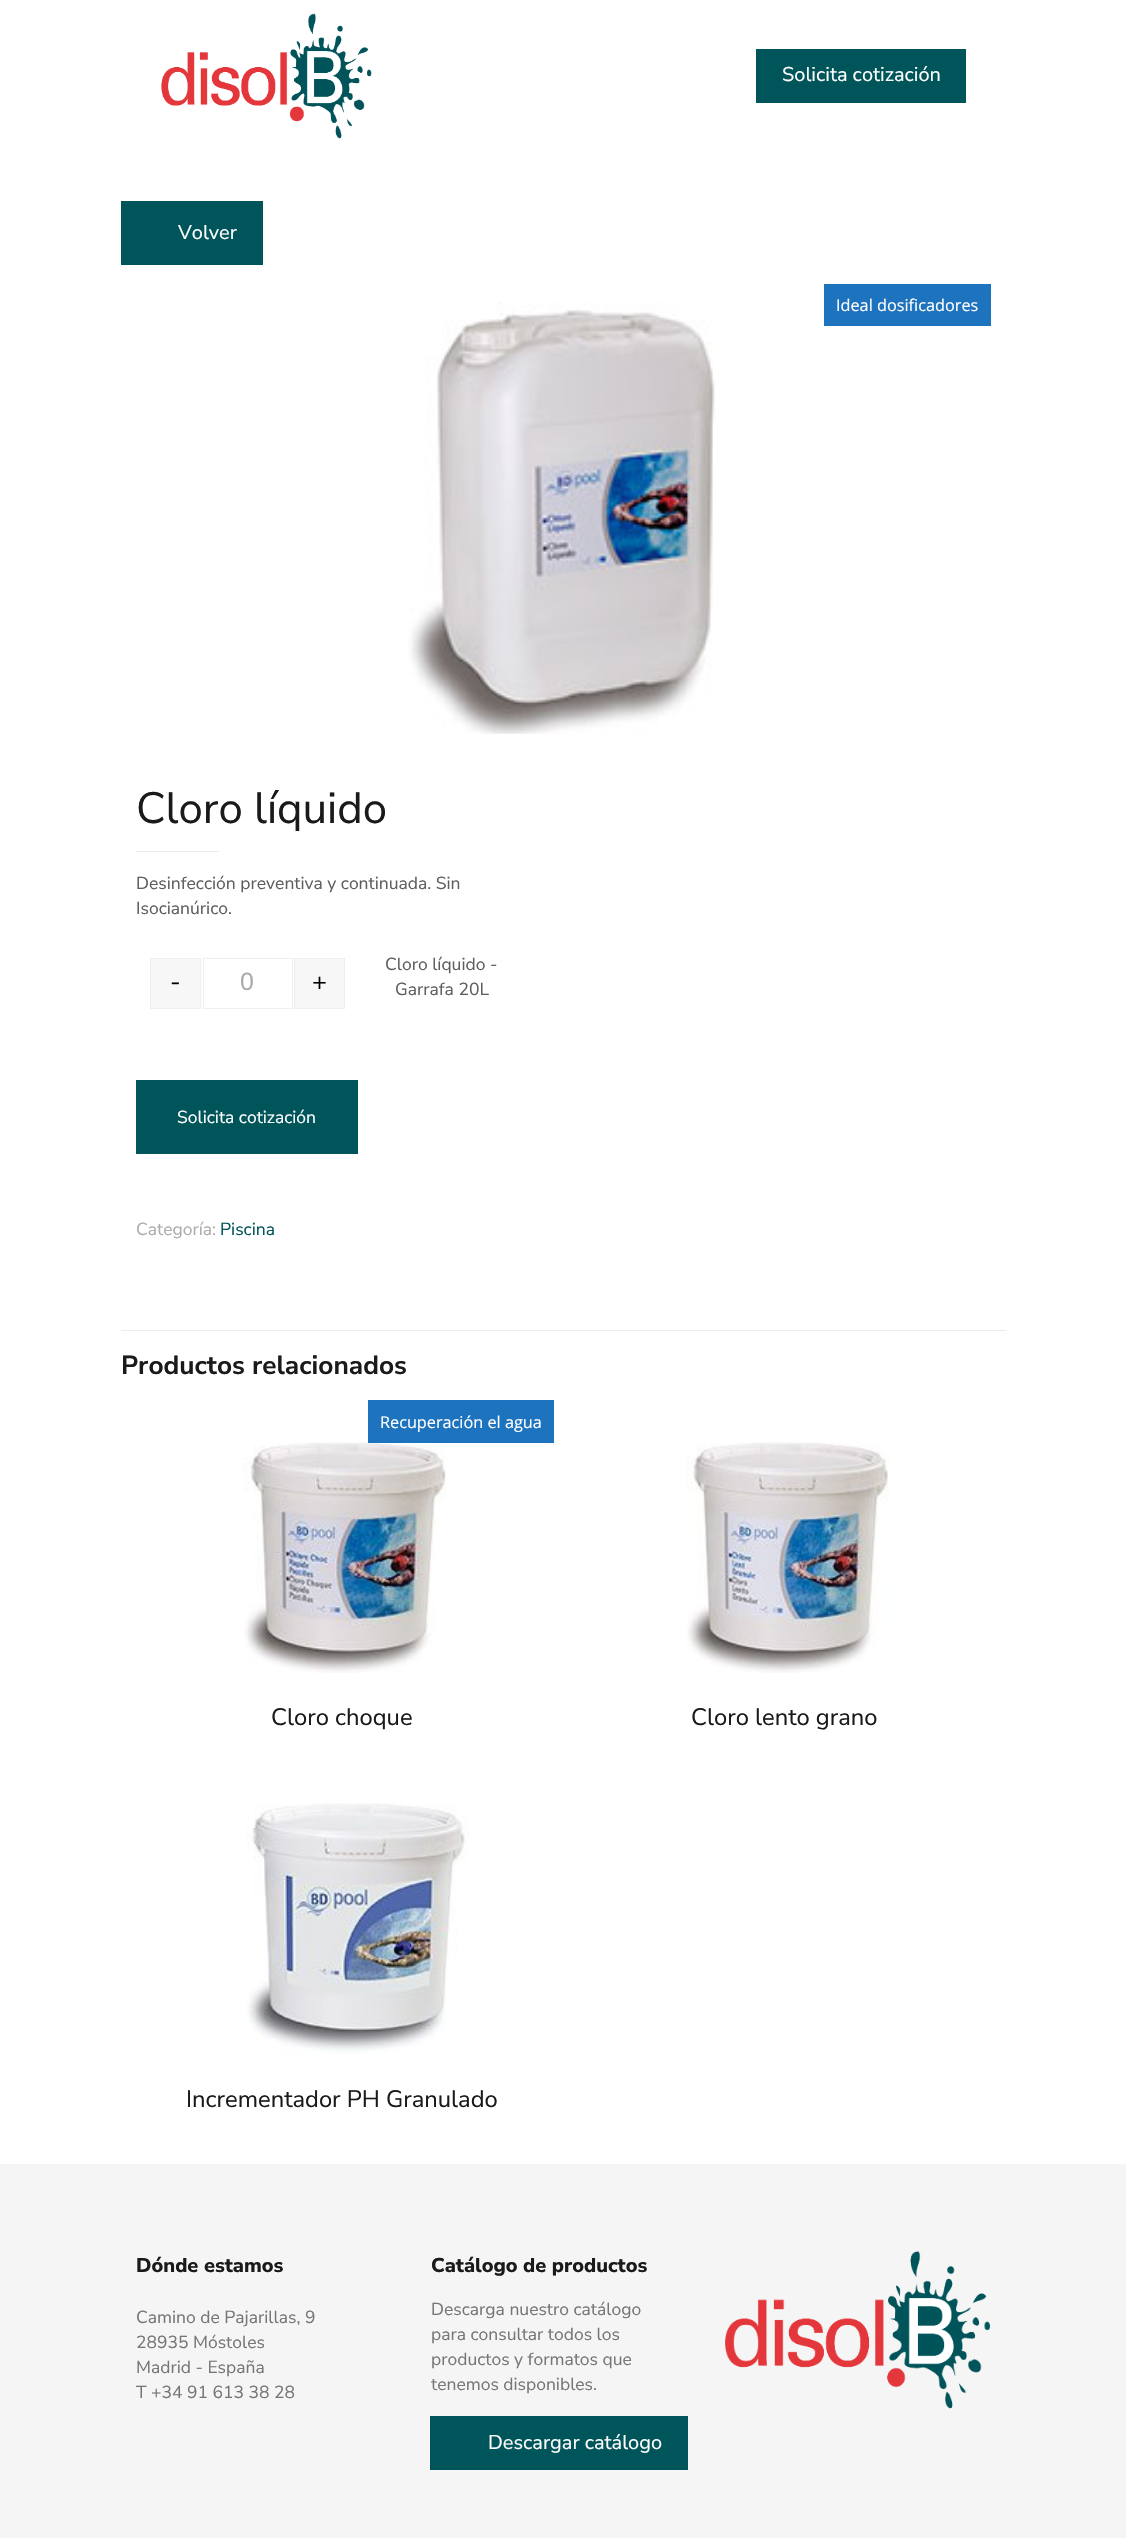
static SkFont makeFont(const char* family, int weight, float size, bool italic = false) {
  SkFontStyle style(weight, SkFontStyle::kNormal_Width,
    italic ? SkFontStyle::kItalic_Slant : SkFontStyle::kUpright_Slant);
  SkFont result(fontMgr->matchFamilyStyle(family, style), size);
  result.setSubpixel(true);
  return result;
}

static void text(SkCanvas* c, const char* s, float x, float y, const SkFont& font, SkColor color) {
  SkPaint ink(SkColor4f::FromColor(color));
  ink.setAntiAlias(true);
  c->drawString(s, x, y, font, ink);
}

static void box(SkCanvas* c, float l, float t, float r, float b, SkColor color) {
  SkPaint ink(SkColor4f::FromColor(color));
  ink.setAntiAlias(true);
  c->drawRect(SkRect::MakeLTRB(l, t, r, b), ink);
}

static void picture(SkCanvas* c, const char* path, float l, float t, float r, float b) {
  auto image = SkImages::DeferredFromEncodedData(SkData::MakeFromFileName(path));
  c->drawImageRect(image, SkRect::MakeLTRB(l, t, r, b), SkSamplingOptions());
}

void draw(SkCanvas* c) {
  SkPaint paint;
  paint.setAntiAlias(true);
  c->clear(0xffffffff);
  picture(c, "img_01.png", 161, 13, 372, 139);
  box(c, 756, 49, 966, 103, 0xff00555a);
  SkFont face1 = makeFont("Nunito Sans", 400, 20);
  text(c, "Solicita cotización", 782, 81, face1, 0xffffffff);
  box(c, 121, 201, 263, 265, 0xff00555a);
  text(c, "Volver", 178, 239, face1, 0xffffffff);
  picture(c, "img_02.png", 408, 302, 715, 734);
  box(c, 824, 284, 991, 326, 0xff1e73be);
  SkFont face2 = makeFont("Open Sans", 400, 16.25f);
  text(c, "Ideal dosificadores", 836, 311, face2, 0xffffffff);
  SkFont face3 = makeFont("Nunito Sans", 400, 43.75f);
  text(c, "Cloro líquido", 136, 823, face3, 0xff1a1a1a);
  box(c, 136, 851, 219, 852, 0xffebebeb);
  SkFont face4 = makeFont("Nunito Sans", 400, 17.5f);
  text(c, "Desinfección preventiva y continuada. Sin", 136, 889, face4, 0xff5e5e5e);
  text(c, "Isocianúrico.", 136, 914, face4, 0xff5e5e5e);
  paint.setColor(0xfff7f7f7);
  c->drawRect(SkRect::MakeLTRB(150.5f, 958.5f, 200.5f, 1008.5f), paint);
  paint.setStyle(SkPaint::kStroke_Style);
  paint.setStrokeWidth(1);
  paint.setColor(0xffefefef);
  c->drawRect(SkRect::MakeLTRB(150.5f, 958.5f, 200.5f, 1008.5f), paint);
  SkFont face5 = makeFont("Nunito Sans", 400, 25);
  text(c, "-", 170, 990, face5, 0xff000000);
  c->drawRect(SkRect::MakeLTRB(203.5f, 958.5f, 292.5f, 1008.5f), paint);
  SkFont face6 = makeFont("Liberation Sans", 400, 25);
  text(c, "0", 240, 990, face6, 0xffacacac);
  paint.setStyle(SkPaint::kFill_Style);
  paint.setColor(0xfff7f7f7);
  c->drawRect(SkRect::MakeLTRB(294.5f, 958.5f, 344.5f, 1008.5f), paint);
  paint.setStyle(SkPaint::kStroke_Style);
  paint.setColor(0xffefefef);
  c->drawRect(SkRect::MakeLTRB(294.5f, 958.5f, 344.5f, 1008.5f), paint);
  text(c, "+", 312, 990, face5, 0xff000000);
  text(c, "Cloro líquido -", 385, 970, face4, 0xff5e5e5e);
  text(c, "Garrafa 20L", 395, 995, face4, 0xff5e5e5e);
  box(c, 136, 1080, 358, 1154, 0xff00555a);
  text(c, "Solicita cotización", 177, 1123, face4, 0xffffffff);
  text(c, "Categoría:", 136, 1235, face4, 0xffacacac);
  text(c, "Piscina", 220, 1235, face4, 0xff00555a);
  box(c, 121, 1330, 1006, 1331, 0xffebebeb);
  SkFont face7 = makeFont("Nunito Sans", 700, 26.25f);
  text(c, "Productos relacionados", 121, 1374, face7, 0xff1a1a1a);
  picture(c, "img_03.png", 243, 1442, 446, 1673);
  box(c, 368, 1400, 554, 1443, 0xff1e73be);
  text(c, "Recuperación el agua", 380, 1428, face2, 0xffffffff);
  SkFont face8 = makeFont("Nunito Sans", 400, 23.75f);
  text(c, "Cloro choque", 271, 1725, face8, 0xff1a1a1a);
  picture(c, "img_04.png", 686, 1442, 889, 1673);
  text(c, "Cloro lento grano", 691, 1725, face8, 0xff1a1a1a);
  picture(c, "img_05.png", 246, 1803, 469, 2054);
  text(c, "Incrementador PH Granulado", 186, 2107, face8, 0xff1a1a1a);
  box(c, 0, 2164, 1126, 2538, 0xfff5f5f5);
  SkFont face9 = makeFont("Nunito Sans", 800, 20);
  text(c, "Dónde estamos", 136, 2272, face9, 0xff1a1a1a);
  text(c, "Camino de Pajarillas, 9", 136, 2323, face4, 0xff767676);
  text(c, "28935 Móstoles", 136, 2348, face4, 0xff767676);
  text(c, "Madrid - España", 136, 2373, face4, 0xff767676);
  text(c, "T +34 91 613 38 28", 136, 2398, face4, 0xff767676);
  text(c, "Catálogo de productos", 431, 2272, face9, 0xff1a1a1a);
  text(c, "Descarga nuestro catálogo", 431, 2315, face4, 0xff767676);
  text(c, "para consultar todos los", 431, 2340, face4, 0xff767676);
  text(c, "productos y formatos que", 431, 2365, face4, 0xff767676);
  text(c, "tenemos disponibles.", 431, 2390, face4, 0xff767676);
  box(c, 430, 2416, 688, 2470, 0xff00555a);
  text(c, "Descargar catálogo", 488, 2449, face1, 0xffffffff);
  picture(c, "img_06.png", 725, 2251, 990, 2409);
}
